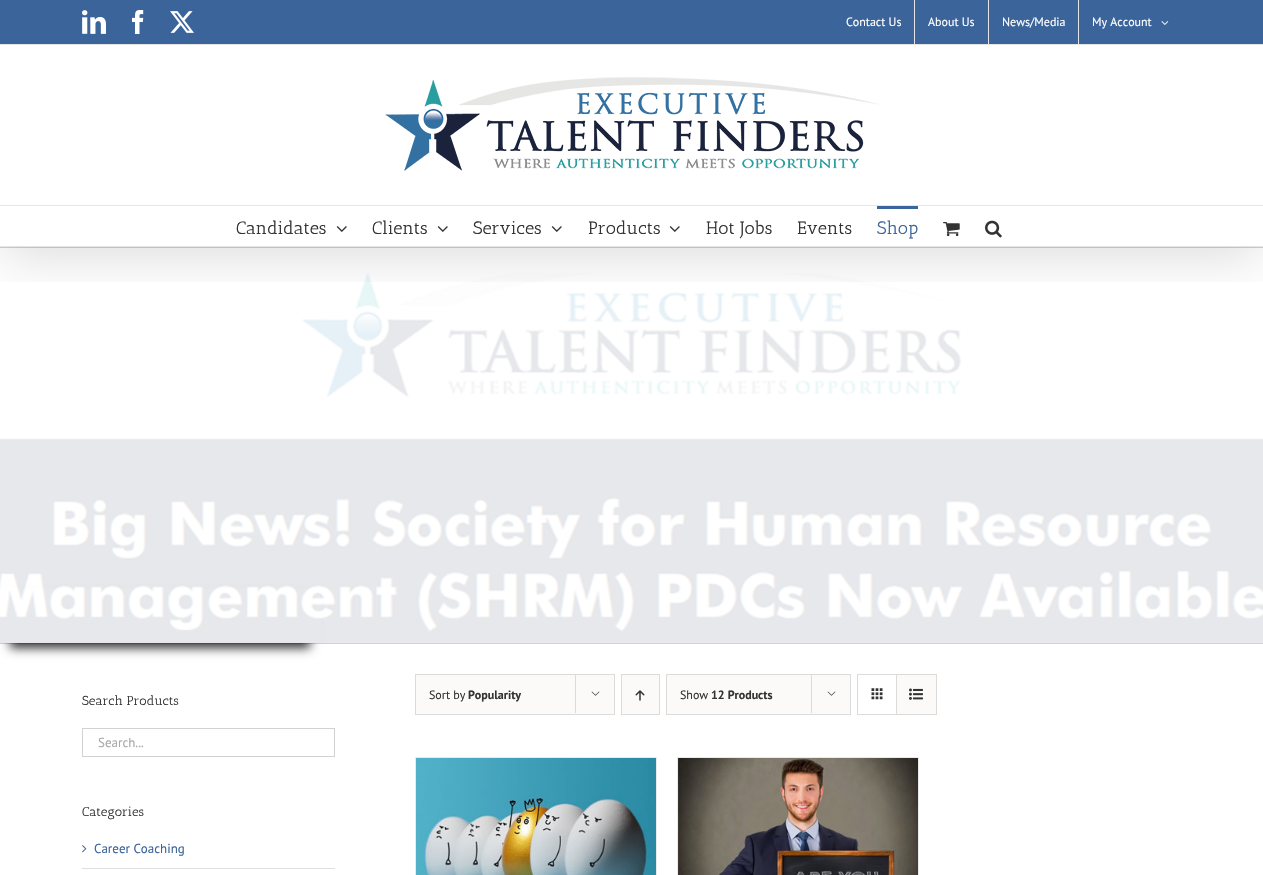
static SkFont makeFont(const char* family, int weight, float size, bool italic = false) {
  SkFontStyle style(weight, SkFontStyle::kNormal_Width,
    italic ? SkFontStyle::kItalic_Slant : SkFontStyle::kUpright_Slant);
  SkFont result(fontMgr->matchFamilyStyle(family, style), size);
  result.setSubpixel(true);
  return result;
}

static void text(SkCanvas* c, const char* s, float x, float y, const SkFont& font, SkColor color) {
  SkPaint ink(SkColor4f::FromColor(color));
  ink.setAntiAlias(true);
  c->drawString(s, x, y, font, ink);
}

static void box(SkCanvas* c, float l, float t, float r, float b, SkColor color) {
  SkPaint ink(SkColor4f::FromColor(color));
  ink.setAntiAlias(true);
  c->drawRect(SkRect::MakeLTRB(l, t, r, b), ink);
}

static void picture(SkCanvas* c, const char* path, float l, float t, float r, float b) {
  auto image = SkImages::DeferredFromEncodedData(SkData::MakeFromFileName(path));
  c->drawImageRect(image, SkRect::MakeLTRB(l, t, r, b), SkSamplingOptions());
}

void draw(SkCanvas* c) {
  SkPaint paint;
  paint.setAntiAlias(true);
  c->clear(0xffffffff);
  box(c, 0, 247, 1263, 248, 0xffd2d3d4);
  box(c, 0, 643, 1263, 644, 0xffd2d3d4);
  paint.setColor(0xcc000000);
  paint.setMaskFilter(SkMaskFilter::MakeBlur(kNormal_SkBlurStyle, 5));
  c->drawRect(SkRect::MakeLTRB(10, 599, 310, 648), paint);
  paint.setMaskFilter(nullptr);
  box(c, 0, 588, 321, 643, 0xffffffff);
  picture(c, "img_09.png", 0, 273, 1263, 643);
  c->save();
  c->clipRect(SkRect::MakeLTRB(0, 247, 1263, 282));
  paint.setColor(0x24000000);
  paint.setMaskFilter(SkMaskFilter::MakeBlur(kNormal_SkBlurStyle, 25));
  c->drawRect(SkRect::MakeLTRB(2, 12, 1261, 255), paint);
  paint.setMaskFilter(nullptr);
  c->restore();
  box(c, 0, 0, 1263, 44, 0xff3b649b);
  box(c, 0, 44, 1263, 45, 0xffe5e5e5);
  picture(c, "img_01.png", 82, 10, 106, 34);
  picture(c, "img_02.png", 132, 10, 144, 34);
  picture(c, "img_03.png", 170, 11, 194, 33);
  SkFont face1 = makeFont("PT Sans", 400, 12);
  text(c, "Contact Us", 846, 26, face1, 0xffffffff);
  box(c, 914, 0, 915, 44, 0xffe5e5e5);
  text(c, "About Us", 928, 26, face1, 0xffffffff);
  box(c, 988, 0, 989, 44, 0xffe5e5e5);
  text(c, "News/Media", 1002, 26, face1, 0xffffffff);
  box(c, 1078, 0, 1079, 44, 0xffe5e5e5);
  text(c, "My Account", 1092, 26, face1, 0xffffffff);
  picture(c, "img_04.png", 1161, 21, 1169, 25);
  box(c, 0, 205, 1263, 206, 0xffe5e5e5);
  picture(c, "img_05.png", 385, 77, 879, 171);
  box(c, 0, 246, 1263, 247, 0xffe5e5e5);
  SkFont face2 = makeFont("Antic Slab", 400, 18);
  text(c, "Candidates", 236, 234, face2, 0xff333333);
  picture(c, "img_06.png", 336, 226, 347, 232);
  text(c, "Clients", 372, 234, face2, 0xff333333);
  picture(c, "img_06.png", 437, 226, 448, 232);
  text(c, "Services", 473, 234, face2, 0xff333333);
  picture(c, "img_06.png", 551, 226, 562, 232);
  text(c, "Products", 588, 234, face2, 0xff333333);
  picture(c, "img_06.png", 669, 226, 680, 232);
  text(c, "Hot Jobs", 706, 234, face2, 0xff333333);
  text(c, "Events", 797, 234, face2, 0xff333333);
  box(c, 877, 206, 918, 209, 0xff3b649b);
  text(c, "Shop", 877, 234, face2, 0xff3b649b);
  picture(c, "img_07.png", 943, 222, 960, 237);
  picture(c, "img_08.png", 985, 220, 1002, 238);
  SkFont face3 = makeFont("Antic Slab", 400, 13);
  text(c, "Search Products", 82, 705, face3, 0xff333333);
  paint.setStyle(SkPaint::kStroke_Style);
  paint.setStrokeWidth(1);
  paint.setColor(0xffd2d2d2);
  c->drawRect(SkRect::MakeLTRB(82.5f, 728.5f, 334.5f, 756.5f), paint);
  SkFont face4 = makeFont("PT Sans", 400, 13);
  text(c, "Search...", 98, 747, face4, 0xffaaa9a9);
  text(c, "Categories", 82, 816, face3, 0xff333333);
  box(c, 82, 868, 335, 869, 0xffe0dede);
  picture(c, "img_10.png", 82, 845, 87, 853);
  text(c, "Career Coaching", 94, 853, face4, 0xff3b649b);
  paint.setStyle(SkPaint::kFill_Style);
  paint.setColor(0xfffbfaf9);
  c->drawRect(SkRect::MakeLTRB(415.5f, 674.5f, 614.5f, 714.5f), paint);
  paint.setStyle(SkPaint::kStroke_Style);
  paint.setColor(0xffdbdbdb);
  c->drawRect(SkRect::MakeLTRB(415.5f, 674.5f, 614.5f, 714.5f), paint);
  text(c, "Sort by", 429, 699, face1, 0xff333333);
  SkFont face5 = makeFont("PT Sans", 700, 12);
  text(c, "Popularity", 468, 699, face5, 0xff333333);
  box(c, 575, 674, 576, 713, 0xffdbdbdb);
  picture(c, "img_11.png", 591, 691, 600, 696);
  paint.setStyle(SkPaint::kFill_Style);
  paint.setColor(0xfffbfaf9);
  c->drawRect(SkRect::MakeLTRB(621.5f, 674.5f, 659.5f, 714.5f), paint);
  paint.setStyle(SkPaint::kStroke_Style);
  paint.setColor(0xffdbdbdb);
  c->drawRect(SkRect::MakeLTRB(621.5f, 674.5f, 659.5f, 714.5f), paint);
  picture(c, "img_12.png", 635, 690, 645, 701);
  paint.setStyle(SkPaint::kFill_Style);
  paint.setColor(0xfffbfaf9);
  c->drawRect(SkRect::MakeLTRB(666.5f, 674.5f, 850.5f, 714.5f), paint);
  paint.setStyle(SkPaint::kStroke_Style);
  paint.setColor(0xffdbdbdb);
  c->drawRect(SkRect::MakeLTRB(666.5f, 674.5f, 850.5f, 714.5f), paint);
  text(c, "Show", 680, 699, face1, 0xff333333);
  text(c, "12 Products", 711, 699, face5, 0xff333333);
  box(c, 811, 674, 812, 713, 0xffdbdbdb);
  picture(c, "img_11.png", 827, 691, 836, 696);
  c->drawRect(SkRect::MakeLTRB(857.5f, 674.5f, 936.5f, 714.5f), paint);
  box(c, 896, 675, 897, 714, 0xffdbdbdb);
  picture(c, "img_13.png", 871, 688, 883, 700);
  box(c, 897, 675, 936, 714, 0xfffbfaf9);
  picture(c, "img_14.png", 909, 688, 923, 700);
  box(c, 415, 757, 657, 758, 0xffebeaea);
  box(c, 656, 757, 657, 875, 0xffebeaea);
  box(c, 415, 757, 416, 875, 0xffebeaea);
  picture(c, "img_15.png", 416, 758, 656, 875);
  box(c, 677, 757, 919, 758, 0xffebeaea);
  box(c, 918, 757, 919, 875, 0xffebeaea);
  box(c, 677, 757, 678, 875, 0xffebeaea);
  picture(c, "img_16.png", 678, 758, 918, 875);
}
